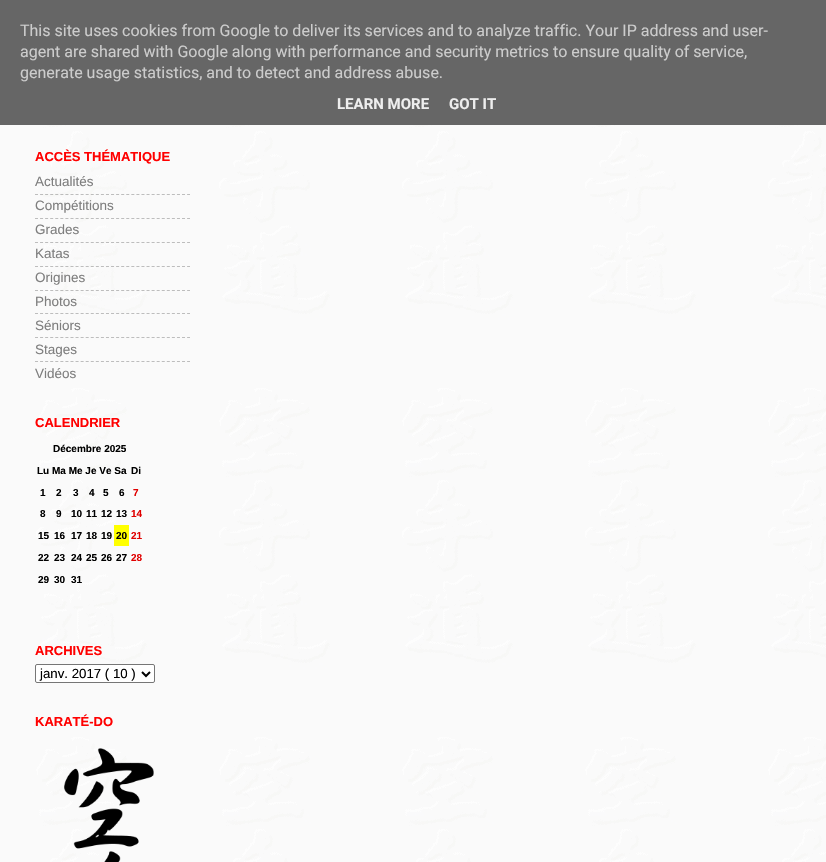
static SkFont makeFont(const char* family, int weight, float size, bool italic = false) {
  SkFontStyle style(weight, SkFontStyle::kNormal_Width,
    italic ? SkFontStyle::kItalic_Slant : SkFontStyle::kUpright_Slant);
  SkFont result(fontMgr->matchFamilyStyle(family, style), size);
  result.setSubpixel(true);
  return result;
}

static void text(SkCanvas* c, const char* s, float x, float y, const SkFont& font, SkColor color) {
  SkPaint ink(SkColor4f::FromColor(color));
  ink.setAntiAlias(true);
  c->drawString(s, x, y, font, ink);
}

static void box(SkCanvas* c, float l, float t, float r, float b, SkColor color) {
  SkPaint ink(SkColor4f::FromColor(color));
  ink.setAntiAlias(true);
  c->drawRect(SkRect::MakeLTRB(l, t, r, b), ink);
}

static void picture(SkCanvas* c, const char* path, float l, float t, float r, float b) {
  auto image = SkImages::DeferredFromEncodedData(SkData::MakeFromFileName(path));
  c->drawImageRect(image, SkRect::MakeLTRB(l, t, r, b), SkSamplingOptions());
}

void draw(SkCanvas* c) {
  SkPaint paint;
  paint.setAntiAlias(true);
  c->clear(0xffffffff);
  picture(c, "img_01.png", 0, 125, 826, 862);
  box(c, 0, 0, 826, 125, 0xff666666);
  SkFont face1 = makeFont("Roboto", 400, 16);
  text(c, "This site uses cookies from Google to deliver its services and to analyze traffic. Your IP address and user-", 20, 36, face1, 0xffcccccc);
  text(c, "agent are shared with Google along with performance and security metrics to ensure quality of service,", 20, 57, face1, 0xffcccccc);
  text(c, "generate usage statistics, and to detect and address abuse.", 20, 78, face1, 0xffcccccc);
  SkFont face2 = makeFont("Roboto", 700, 15);
  text(c, "LEARN MORE", 337, 109, face2, 0xffeeeeee);
  text(c, "GOT IT", 449, 109, face2, 0xffeeeeee);
  SkFont face3 = makeFont("Liberation Sans", 700, 13);
  text(c, "ACCÈS THÉMATIQUE", 35, 161, face3, 0xffff0000);
  SkFont face4 = makeFont("Liberation Sans", 400, 13.5f);
  text(c, "Actualités", 35, 186, face4, 0xff7f7f7f);
  paint.setStyle(SkPaint::kStroke_Style);
  paint.setStrokeWidth(1);
  paint.setColor(0x80808080);
  paint.setPathEffect(SkDashPathEffect::Make({{3, 2.07f}}, 0));
  c->drawPath(SkPathBuilder().moveTo(35, 194.5f).lineTo(190, 194.5f).detach(), paint);
  paint.setPathEffect(nullptr);
  text(c, "Compétitions", 35, 210, face4, 0xff7f7f7f);
  paint.setPathEffect(SkDashPathEffect::Make({{3, 2.07f}}, 0));
  c->drawPath(SkPathBuilder().moveTo(35, 218.5f).lineTo(190, 218.5f).detach(), paint);
  paint.setPathEffect(nullptr);
  text(c, "Grades", 35, 234, face4, 0xff7f7f7f);
  paint.setPathEffect(SkDashPathEffect::Make({{3, 2.07f}}, 0));
  c->drawPath(SkPathBuilder().moveTo(35, 242.5f).lineTo(190, 242.5f).detach(), paint);
  paint.setPathEffect(nullptr);
  text(c, "Katas", 35, 258, face4, 0xff7f7f7f);
  paint.setPathEffect(SkDashPathEffect::Make({{3, 2.07f}}, 0));
  c->drawPath(SkPathBuilder().moveTo(35, 266.5f).lineTo(190, 266.5f).detach(), paint);
  paint.setPathEffect(nullptr);
  text(c, "Origines", 35, 282, face4, 0xff7f7f7f);
  paint.setPathEffect(SkDashPathEffect::Make({{3, 2.07f}}, 0));
  c->drawPath(SkPathBuilder().moveTo(35, 290.5f).lineTo(190, 290.5f).detach(), paint);
  paint.setPathEffect(nullptr);
  text(c, "Photos", 35, 306, face4, 0xff7f7f7f);
  paint.setPathEffect(SkDashPathEffect::Make({{3, 2.07f}}, 0));
  c->drawPath(SkPathBuilder().moveTo(35, 313.5f).lineTo(190, 313.5f).detach(), paint);
  paint.setPathEffect(nullptr);
  text(c, "Séniors", 35, 330, face4, 0xff7f7f7f);
  paint.setColor(0xffbdbdbd);
  paint.setPathEffect(SkDashPathEffect::Make({{3, 2.07f}}, 0));
  c->drawPath(SkPathBuilder().moveTo(35, 337.5f).lineTo(190, 337.5f).detach(), paint);
  paint.setPathEffect(nullptr);
  text(c, "Stages", 35, 354, face4, 0xff7f7f7f);
  paint.setPathEffect(SkDashPathEffect::Make({{3, 2.07f}}, 0));
  c->drawPath(SkPathBuilder().moveTo(35, 361.5f).lineTo(190, 361.5f).detach(), paint);
  paint.setPathEffect(nullptr);
  text(c, "Vidéos", 35, 378, face4, 0xff7f7f7f);
  text(c, "CALENDRIER", 35, 427, face3, 0xffff0000);
  SkFont face5 = makeFont("Liberation Sans", 700, 10);
  text(c, "Décembre 2025", 53, 452, face5, 0xff000000);
  text(c, "Lu Ma Me Je Ve Sa", 37, 474, face5, 0xff000000);
  text(c, "Di", 131, 474, face5, 0xff000000);
  text(c, "1", 40, 496, face5, 0xff000000);
  text(c, "2", 56, 496, face5, 0xff000000);
  text(c, "3", 73, 496, face5, 0xff000000);
  text(c, "4", 89, 496, face5, 0xff000000);
  text(c, "5", 103, 496, face5, 0xff000000);
  text(c, "6", 119, 496, face5, 0xff000000);
  text(c, "7", 133, 496, face5, 0xffe00000);
  text(c, "8", 40, 517, face5, 0xff000000);
  text(c, "9", 56, 517, face5, 0xff000000);
  text(c, "10", 71, 517, face5, 0xff000000);
  text(c, "11", 86, 517, face5, 0xff000000);
  text(c, "12", 101, 517, face5, 0xff000000);
  text(c, "13", 116, 517, face5, 0xff000000);
  text(c, "14", 131, 517, face5, 0xffe00000);
  text(c, "15", 38, 539, face5, 0xff000000);
  text(c, "16", 54, 539, face5, 0xff000000);
  text(c, "17", 71, 539, face5, 0xff000000);
  text(c, "18", 86, 539, face5, 0xff000000);
  text(c, "19", 101, 539, face5, 0xff000000);
  box(c, 114, 525, 129, 546, 0xffffff00);
  text(c, "20", 116, 539, face5, 0xff000000);
  text(c, "21", 131, 539, face5, 0xffe00000);
  text(c, "22", 38, 561, face5, 0xff000000);
  text(c, "23", 54, 561, face5, 0xff000000);
  text(c, "24", 71, 561, face5, 0xff000000);
  text(c, "25", 86, 561, face5, 0xff000000);
  text(c, "26", 101, 561, face5, 0xff000000);
  text(c, "27", 116, 561, face5, 0xff000000);
  text(c, "28", 131, 561, face5, 0xffe00000);
  text(c, "29", 38, 583, face5, 0xff000000);
  text(c, "30", 54, 583, face5, 0xff000000);
  text(c, "31", 71, 583, face5, 0xff000000);
  text(c, "ARCHIVES", 35, 655, face3, 0xffff0000);
  paint.setStyle(SkPaint::kFill_Style);
  paint.setColor(0xffffffff);
  c->drawRoundRect(SkRect::MakeLTRB(35.5f, 664.5f, 154.5f, 682.5f), 1.5f, 1.5f, paint);
  paint.setStyle(SkPaint::kStroke_Style);
  paint.setColor(0xff767676);
  c->drawRoundRect(SkRect::MakeLTRB(35.5f, 664.5f, 154.5f, 682.5f), 1.5f, 1.5f, paint);
  paint.setStrokeWidth(2);
  paint.setColor(0xff000000);
  c->drawPath(SkPathBuilder().moveTo(142, 672).lineTo(146, 676).lineTo(150, 672).detach(), paint);
  SkFont face6 = makeFont("Liberation Sans", 400, 13.25f);
  text(c, "janv. 2017 ( 10 )", 40, 678, face6, 0xff000000);
  text(c, "KARATÉ-DO", 35, 726, face3, 0xffff0000);
  picture(c, "img_02.png", 64, 748, 154, 862);
}
